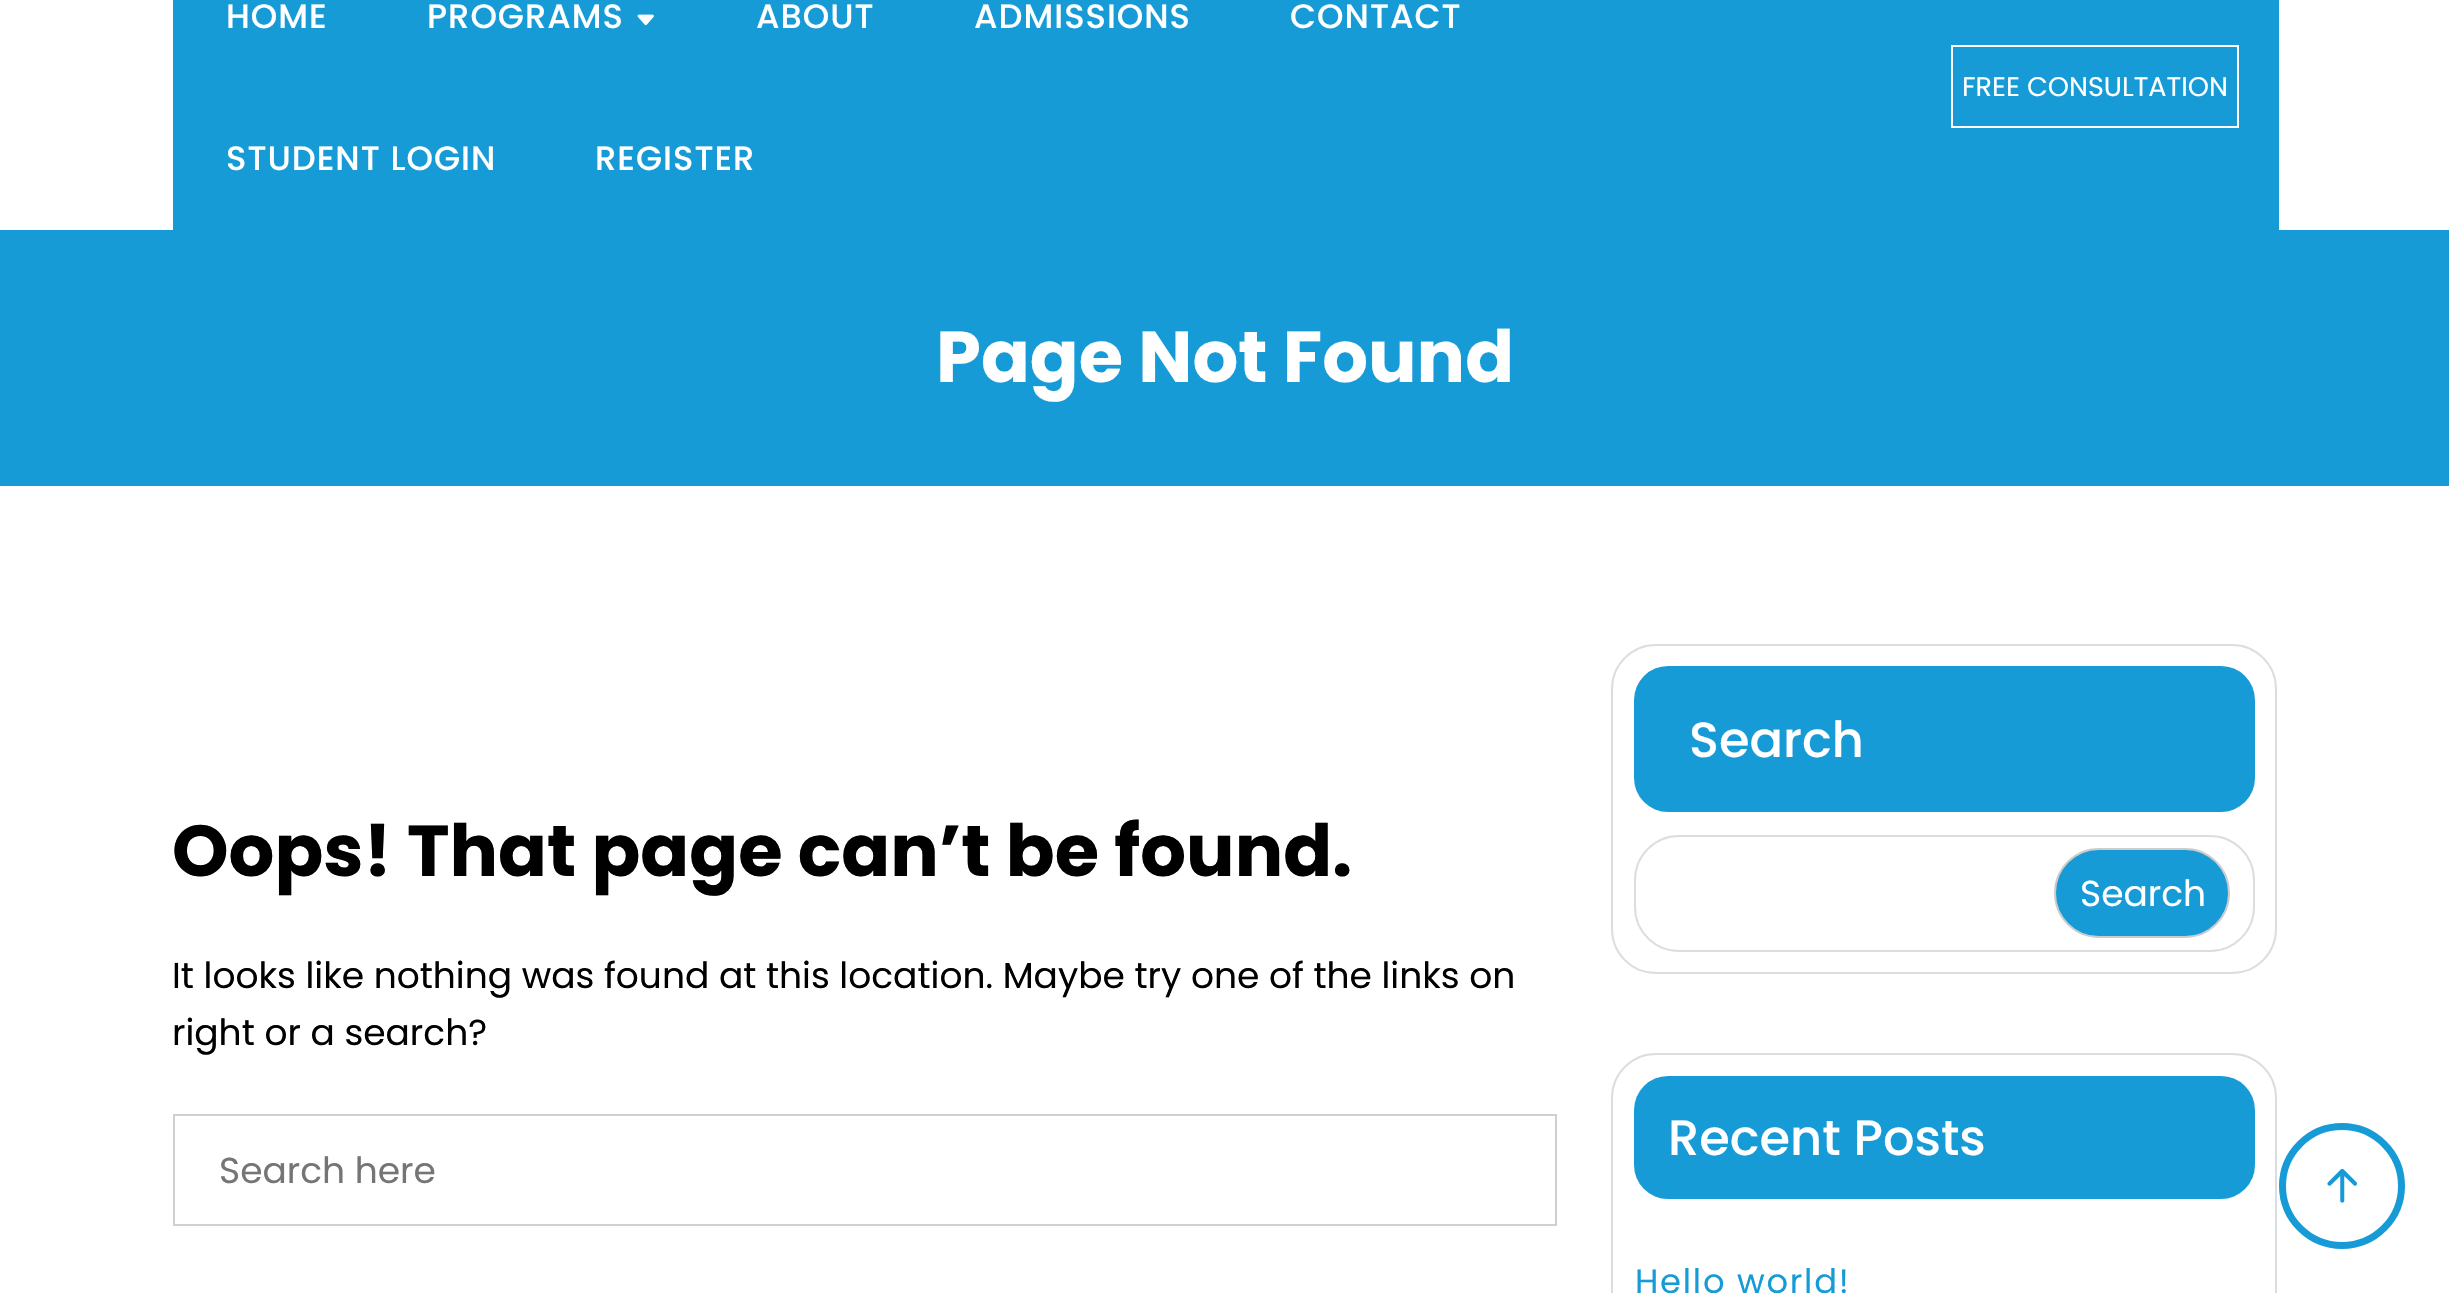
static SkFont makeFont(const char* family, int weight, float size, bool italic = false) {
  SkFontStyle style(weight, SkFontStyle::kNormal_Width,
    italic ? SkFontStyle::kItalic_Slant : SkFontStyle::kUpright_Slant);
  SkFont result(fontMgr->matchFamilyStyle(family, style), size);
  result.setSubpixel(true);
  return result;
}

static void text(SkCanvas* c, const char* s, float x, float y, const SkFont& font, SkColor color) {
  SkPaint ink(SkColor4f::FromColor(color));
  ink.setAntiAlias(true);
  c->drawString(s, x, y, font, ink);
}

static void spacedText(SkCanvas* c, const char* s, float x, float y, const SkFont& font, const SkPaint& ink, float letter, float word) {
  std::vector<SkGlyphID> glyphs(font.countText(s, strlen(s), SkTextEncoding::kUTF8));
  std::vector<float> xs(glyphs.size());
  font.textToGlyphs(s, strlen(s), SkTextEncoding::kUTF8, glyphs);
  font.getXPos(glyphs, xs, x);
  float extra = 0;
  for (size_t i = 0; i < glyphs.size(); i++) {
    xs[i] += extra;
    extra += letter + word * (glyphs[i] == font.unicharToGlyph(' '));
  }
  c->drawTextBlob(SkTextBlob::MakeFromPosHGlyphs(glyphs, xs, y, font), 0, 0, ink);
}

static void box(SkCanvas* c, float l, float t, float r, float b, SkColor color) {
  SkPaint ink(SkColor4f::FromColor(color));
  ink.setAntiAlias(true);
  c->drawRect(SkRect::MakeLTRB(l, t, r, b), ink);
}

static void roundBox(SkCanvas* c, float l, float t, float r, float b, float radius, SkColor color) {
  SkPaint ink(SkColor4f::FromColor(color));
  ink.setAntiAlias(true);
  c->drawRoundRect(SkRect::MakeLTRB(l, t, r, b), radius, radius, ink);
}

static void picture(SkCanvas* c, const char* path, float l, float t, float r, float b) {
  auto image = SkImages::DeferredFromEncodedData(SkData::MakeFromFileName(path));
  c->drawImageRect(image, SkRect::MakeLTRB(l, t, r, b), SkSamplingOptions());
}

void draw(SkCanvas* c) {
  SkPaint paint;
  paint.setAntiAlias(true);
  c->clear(0xffffffff);
  box(c, 173, 0, 2279, 230, 0xff179bd7);
  SkFont face1 = makeFont("Poppins", 500, 33.75f);
  paint.setColor(0xffffffff);
  spacedText(c, "HOME", 226, 28, face1, paint, 1, 0);
  spacedText(c, "PROGRAMS", 427, 28, face1, paint, 1, 0);
  picture(c, "img_01.png", 637, 14, 654, 26);
  spacedText(c, "ABOUT", 756, 28, face1, paint, 1, 0);
  spacedText(c, "ADMISSIONS", 974, 28, face1, paint, 1, 0);
  spacedText(c, "CONTACT", 1290, 28, face1, paint, 1, 0);
  spacedText(c, "STUDENT LOGIN", 226, 170, face1, paint, 1, 0);
  spacedText(c, "REGISTER", 595, 170, face1, paint, 1, 0);
  paint.setStyle(SkPaint::kStroke_Style);
  paint.setStrokeWidth(2);
  c->drawRect(SkRect::MakeLTRB(1952, 46, 2238, 127), paint);
  SkFont face2 = makeFont("Poppins", 400, 27);
  text(c, "FREE CONSULTATION", 1962, 96, face2, 0xffffffff);
  box(c, 0, 230, 2449, 486, 0xff179bd7);
  SkFont face3 = makeFont("Poppins", 700, 72);
  text(c, "Page Not Found", 936, 382, face3, 0xffffffff);
  text(c, "Oops! That page can’t be found.", 172, 876, face3, 0xff000000);
  SkFont face4 = makeFont("Poppins", 400, 36);
  text(c, "It looks like nothing was found at this location. Maybe try one of the links on", 172, 988, face4, 0xff000000);
  text(c, "right or a search?", 172, 1045, face4, 0xff000000);
  paint.setColor(0xffd0d0d0);
  c->drawRect(SkRect::MakeLTRB(174, 1115, 1556, 1225), paint);
  text(c, "Search here", 219, 1183, face4, 0xff757575);
  paint.setColor(0xffdadee2);
  c->drawRoundRect(SkRect::MakeLTRB(1612, 645, 2276, 973), 44, 44, paint);
  roundBox(c, 1634, 666, 2255, 812, 34, 0xff179bd7);
  SkFont face5 = makeFont("Poppins", 500, 49.5f);
  text(c, "Search", 1689, 757, face5, 0xffffffff);
  c->drawRoundRect(SkRect::MakeLTRB(1635, 836, 2254, 951), 44, 44, paint);
  paint.setStyle(SkPaint::kFill_Style);
  paint.setColor(0xff179bd7);
  c->drawRoundRect(SkRect::MakeLTRB(2055, 849, 2229, 937), 44, 44, paint);
  paint.setStyle(SkPaint::kStroke_Style);
  paint.setColor(0xffcccccc);
  c->drawRoundRect(SkRect::MakeLTRB(2055, 849, 2229, 937), 44, 44, paint);
  text(c, "Search", 2080, 906, face4, 0xffffffff);
  paint.setColor(0xffdadee2);
  c->drawRoundRect(SkRect::MakeLTRB(1612, 1054, 2276, 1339), 44, 44, paint);
  roundBox(c, 1634, 1076, 2255, 1199, 34, 0xff179bd7);
  text(c, "Recent Posts", 1668, 1155, face5, 0xffffffff);
  SkFont face6 = makeFont("Poppins", 400, 33.75f);
  paint.setStyle(SkPaint::kFill_Style);
  paint.setColor(0xff179bd7);
  spacedText(c, "Hello world!", 1635, 1293, face6, paint, 1.75f, 0);
  paint.setStyle(SkPaint::kStroke_Style);
  paint.setStrokeWidth(7);
  c->drawCircle(2342, 1186, 59.5f, paint);
  picture(c, "img_02.png", 2327, 1168, 2358, 1203);
}
